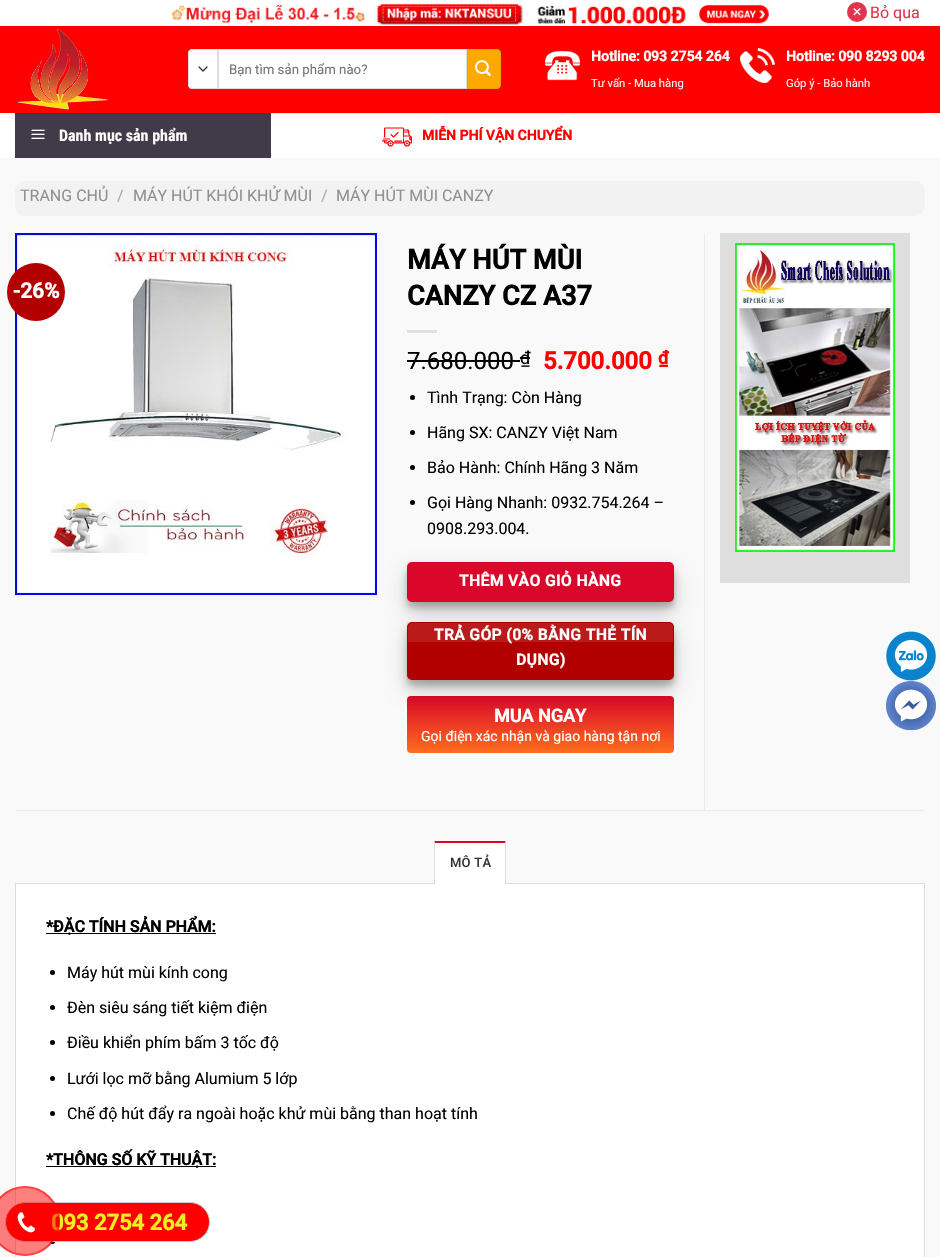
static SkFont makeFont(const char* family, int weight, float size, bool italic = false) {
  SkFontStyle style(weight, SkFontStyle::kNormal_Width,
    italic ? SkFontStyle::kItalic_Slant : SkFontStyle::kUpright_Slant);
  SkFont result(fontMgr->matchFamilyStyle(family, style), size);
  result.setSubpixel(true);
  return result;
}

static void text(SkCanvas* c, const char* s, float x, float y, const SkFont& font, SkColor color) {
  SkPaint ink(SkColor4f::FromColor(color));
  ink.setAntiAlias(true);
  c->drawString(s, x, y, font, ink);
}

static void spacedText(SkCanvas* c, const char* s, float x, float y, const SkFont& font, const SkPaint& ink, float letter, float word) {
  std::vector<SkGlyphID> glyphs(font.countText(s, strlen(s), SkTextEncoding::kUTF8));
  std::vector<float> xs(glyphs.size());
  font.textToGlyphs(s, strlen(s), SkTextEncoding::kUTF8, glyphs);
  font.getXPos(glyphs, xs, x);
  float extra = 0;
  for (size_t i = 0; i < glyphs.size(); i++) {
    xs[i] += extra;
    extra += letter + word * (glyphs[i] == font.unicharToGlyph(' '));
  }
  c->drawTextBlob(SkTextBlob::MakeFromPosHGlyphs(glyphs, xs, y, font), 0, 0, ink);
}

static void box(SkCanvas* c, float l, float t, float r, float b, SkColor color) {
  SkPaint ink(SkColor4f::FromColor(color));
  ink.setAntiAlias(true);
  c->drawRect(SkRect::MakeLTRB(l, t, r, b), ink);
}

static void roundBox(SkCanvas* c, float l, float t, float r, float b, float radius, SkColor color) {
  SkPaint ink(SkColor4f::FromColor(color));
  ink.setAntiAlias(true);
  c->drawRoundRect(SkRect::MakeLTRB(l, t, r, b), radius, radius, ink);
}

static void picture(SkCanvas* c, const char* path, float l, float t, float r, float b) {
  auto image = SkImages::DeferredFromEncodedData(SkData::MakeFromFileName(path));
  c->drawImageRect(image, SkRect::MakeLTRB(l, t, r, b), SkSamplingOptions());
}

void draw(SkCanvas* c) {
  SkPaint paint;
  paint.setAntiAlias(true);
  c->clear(0xffffffff);
  picture(c, "img_01.png", 171, 3, 769, 25);
  paint.setColor(0xffe3334d);
  c->drawCircle(857, 12, 10, paint);
  SkFont face1 = makeFont("DejaVu Sans", 400, 12);
  text(c, "✕", 852, 16, face1, 0xffffffff);
  SkFont face2 = makeFont("Roboto", 400, 16);
  text(c, "Bỏ qua", 870, 18, face2, 0xffe3334d);
  box(c, 0, 158, 940, 1257, 0xfff9f9f9);
  box(c, 0, 26, 940, 113, 0xfffe0000);
  picture(c, "img_02.png", 17, 29, 108, 110);
  paint.setColor(0xffffffff);
  c->drawPath(SkPathBuilder().moveTo(192, 49).lineTo(218, 49).lineTo(218, 89).lineTo(192, 89).cubicTo(190, 89, 188, 87, 188, 85).lineTo(188, 53).cubicTo(188, 51, 190, 49, 192, 49).close().detach(), paint);
  paint.setStyle(SkPaint::kStroke_Style);
  paint.setStrokeWidth(1.3f);
  paint.setStrokeCap(SkPaint::kRound_Cap);
  paint.setStrokeJoin(SkPaint::kRound_Join);
  paint.setColor(0xff333333);
  c->drawPath(SkPathBuilder().moveTo(199, 67).lineTo(203, 71).lineTo(207, 67).detach(), paint);
  paint.setStrokeWidth(1);
  paint.setStrokeCap(SkPaint::kButt_Cap);
  paint.setStrokeJoin(SkPaint::kMiter_Join);
  paint.setColor(0xffdddddd);
  c->drawPath(SkPathBuilder().moveTo(192, 49.5f).lineTo(217.5f, 49.5f).lineTo(217.5f, 88.5f).lineTo(192, 88.5f).cubicTo(190, 88.5f, 188.5f, 87, 188.5f, 85).lineTo(188.5f, 53).cubicTo(188.5f, 51, 190, 49.5f, 192, 49.5f).close().detach(), paint);
  paint.setStyle(SkPaint::kFill_Style);
  paint.setColor(0xffffffff);
  c->drawRect(SkRect::MakeLTRB(218.5f, 49.5f, 466.5f, 88.5f), paint);
  paint.setStyle(SkPaint::kStroke_Style);
  paint.setColor(0xffdddddd);
  c->drawRect(SkRect::MakeLTRB(218.5f, 49.5f, 466.5f, 88.5f), paint);
  SkFont face3 = makeFont("Roboto", 400, 13.25f);
  text(c, "Bạn tìm sản phẩm nào?", 229, 74, face3, 0xff757575);
  paint.setStyle(SkPaint::kFill_Style);
  paint.setColor(0xffffa800);
  c->drawPath(SkPathBuilder().moveTo(467, 49).lineTo(497, 49).cubicTo(499, 49, 501, 51, 501, 53).lineTo(501, 85).cubicTo(501, 87, 499, 89, 497, 89).lineTo(467, 89).close().detach(), paint);
  paint.setStyle(SkPaint::kStroke_Style);
  paint.setColor(0x0d000000);
  c->drawRect(SkRect::MakeLTRB(467.5f, 49.5f, 500.5f, 88.5f), paint);
  picture(c, "img_03.png", 475, 60, 491, 76);
  picture(c, "img_04.png", 545, 50, 580, 81);
  SkFont face4 = makeFont("Roboto", 700, 14);
  text(c, "Hotline: 093 2754 264", 591, 61, face4, 0xffffffff);
  SkFont face5 = makeFont("Roboto", 400, 11.25f);
  text(c, "Tư vấn - Mua hàng", 591, 87, face5, 0xfff1f1f1);
  picture(c, "img_05.png", 740, 48, 775, 83);
  text(c, "Hotline: 090 8293 004", 786, 61, face4, 0xffffffff);
  text(c, "Góp ý - Bảo hành", 786, 87, face5, 0xfff1f1f1);
  box(c, 271, 113, 925, 114, 0xffe6e6e6);
  box(c, 15, 114, 271, 158, 0xff413b49);
  box(c, 15, 113, 271, 114, 0xff3b3542);
  picture(c, "img_06.png", 31, 129, 45, 139);
  SkFont face6 = makeFont("Roboto Condensed", 700, 16);
  text(c, "Danh mục sản phẩm", 59, 141, face6, 0xffffffff);
  picture(c, "img_07.png", 382, 127, 412, 147);
  text(c, "MIỄN PHÍ VẬN CHUYỂN", 422, 140, face4, 0xffff0000);
  roundBox(c, 15, 181, 925, 216, 10, 0xfff2f2f2);
  text(c, "TRANG CHỦ", 20, 201, face2, 0xff909090);
  text(c, "/", 117, 201, face2, 0xffa9a9a9);
  text(c, "MÁY HÚT KHÓI KHỬ MÙI", 133, 201, face2, 0xff909090);
  text(c, "/", 321, 201, face2, 0xffa9a9a9);
  text(c, "MÁY HÚT MÙI CANZY", 336, 201, face2, 0xff909090);
  picture(c, "img_08.png", 15, 233, 377, 595);
  paint.setStyle(SkPaint::kFill_Style);
  paint.setColor(0xffb20000);
  c->drawCircle(36, 292, 29, paint);
  SkFont face7 = makeFont("Roboto", 700, 21);
  text(c, "-26%", 13, 298, face7, 0xffffffff);
  paint.setStyle(SkPaint::kStroke_Style);
  paint.setStrokeWidth(2);
  paint.setColor(0xffffffff);
  c->drawCircle(41.5f, 570.5f, 18.5f, paint);
  box(c, 704, 233, 705, 810, 0xffececec);
  SkFont face8 = makeFont("Roboto", 700, 27.25f);
  text(c, "MÁY HÚT MÙI", 407, 269, face8, 0xff000000);
  text(c, "CANZY CZ A37", 407, 305, face8, 0xff000000);
  box(c, 407, 330, 437, 333, 0xffe0e0e0);
  SkFont face9 = makeFont("Roboto", 400, 24);
  text(c, "7.680.000", 407, 369, face9, 0xff000000);
  box(c, 407, 360, 520, 362, 0xff000000);
  SkFont face10 = makeFont("Roboto", 400, 18);
  text(c, "₫", 520, 364, face10, 0xff000000);
  box(c, 520, 357, 530, 359, 0xff000000);
  SkFont face11 = makeFont("Roboto", 700, 24);
  text(c, "5.700.000", 543, 369, face11, 0xffff0000);
  SkFont face12 = makeFont("Roboto", 700, 18);
  text(c, "₫", 658, 364, face12, 0xffff0000);
  paint.setStyle(SkPaint::kFill_Style);
  paint.setColor(0xff000000);
  c->drawCircle(412.5f, 397.5f, 2.5f, paint);
  text(c, "Tình Trạng: Còn Hàng", 427, 403, face2, 0xff000000);
  c->drawCircle(412.5f, 432.5f, 2.5f, paint);
  text(c, "Hãng SX: CANZY Việt Nam", 427, 438, face2, 0xff000000);
  c->drawCircle(412.5f, 467.5f, 2.5f, paint);
  text(c, "Bảo Hành: Chính Hãng 3 Năm", 427, 473, face2, 0xff000000);
  c->drawCircle(412.5f, 502.5f, 2.5f, paint);
  text(c, "Gọi Hàng Nhanh: 0932.754.264 –", 427, 508, face2, 0xff000000);
  text(c, "0908.293.004.", 427, 534, face2, 0xff000000);
  paint.setColor(0x38000000);
  paint.setMaskFilter(SkMaskFilter::MakeBlur(kNormal_SkBlurStyle, 3));
  c->drawRoundRect(SkRect::MakeLTRB(407, 568, 674, 608), 5, 5, paint);
  paint.setMaskFilter(nullptr);
  paint.setColor(0x30000000);
  paint.setMaskFilter(SkMaskFilter::MakeBlur(kNormal_SkBlurStyle, 10));
  c->drawRoundRect(SkRect::MakeLTRB(407, 572, 674, 612), 5, 5, paint);
  paint.setMaskFilter(nullptr);
  roundBox(c, 407, 562, 674, 602, 5, 0xffda072a);
  paint.setStyle(SkPaint::kStroke_Style);
  paint.setStrokeWidth(1);
  paint.setColor(0x0d000000);
  c->drawRect(SkRect::MakeLTRB(407.5f, 562.5f, 673.5f, 601.5f), paint);
  SkFont face13 = makeFont("Roboto", 700, 15.5f);
  paint.setStyle(SkPaint::kFill_Style);
  paint.setColor(0xffffffff);
  spacedText(c, "THÊM VÀO GIỎ HÀNG", 459, 586, face13, paint, 0.5f, 0);
  paint.setColor(0x38000000);
  paint.setMaskFilter(SkMaskFilter::MakeBlur(kNormal_SkBlurStyle, 3));
  c->drawRoundRect(SkRect::MakeLTRB(407, 628, 674, 686), 5, 5, paint);
  paint.setMaskFilter(nullptr);
  {
    const SkColor colors[] = {0xffda072a, 0xfffd6e1d};
    const float stops[] = {0, 1};
    const SkPoint ends[] = {{541, 696}, {541, 753}};
    paint.setShader(SkGradientShader::MakeLinear(ends, colors, stops, 2, SkTileMode::kClamp));
    paint.setAlpha(255);
  }
  c->drawRoundRect(SkRect::MakeLTRB(407, 696, 674, 753), 4, 4, paint);
  paint.setShader(nullptr);
  paint.setColor(0x30000000);
  paint.setMaskFilter(SkMaskFilter::MakeBlur(kNormal_SkBlurStyle, 10));
  c->drawRoundRect(SkRect::MakeLTRB(407, 632, 674, 690), 5, 5, paint);
  paint.setMaskFilter(nullptr);
  roundBox(c, 407, 622, 674, 680, 5, 0xffb20000);
  paint.setStyle(SkPaint::kStroke_Style);
  paint.setColor(0x0d000000);
  c->drawRect(SkRect::MakeLTRB(407.5f, 622.5f, 673.5f, 679.5f), paint);
  paint.setStyle(SkPaint::kFill_Style);
  paint.setColor(0x1affffff);
  c->drawPath(SkPathBuilder().moveTo(412, 623).lineTo(669, 623).cubicTo(671, 623, 673, 625, 673, 627).lineTo(673, 642).lineTo(408, 642).lineTo(408, 627).cubicTo(408, 625, 410, 623, 412, 623).close().detach(), paint);
  paint.setColor(0xffffffff);
  spacedText(c, "TRẢ GÓP (0% BẰNG THẺ TÍN", 434, 640, face13, paint, 0.5f, 0);
  spacedText(c, "DỤNG)", 516, 665, face13, paint, 0.5f, 0);
  text(c, "MUA NGAY", 494, 722, face12, 0xffffffff);
  SkFont face14 = makeFont("Roboto", 400, 14);
  text(c, "Gọi điện xác nhận và giao hàng tận nơi", 421, 741, face14, 0xffffffff);
  box(c, 720, 233, 910, 583, 0xffdedede);
  picture(c, "img_09.png", 735, 243, 895, 552);
  box(c, 15, 810, 925, 811, 0xffececec);
  c->drawRect(SkRect::MakeLTRB(15.5f, 883.5f, 924.5f, 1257.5f), paint);
  paint.setStyle(SkPaint::kStroke_Style);
  paint.setColor(0xffdddddd);
  c->drawRect(SkRect::MakeLTRB(15.5f, 883.5f, 924.5f, 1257.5f), paint);
  box(c, 434, 841, 506, 884, 0xffffffff);
  paint.setStyle(SkPaint::kFill_Style);
  paint.setColor(0xffda072a);
  c->drawPath(SkPathBuilder().moveTo(434, 841).lineTo(506, 841).lineTo(505, 843).lineTo(435, 843).close().detach(), paint);
  paint.setColor(0xffdddddd);
  c->drawPath(SkPathBuilder().moveTo(506, 841).lineTo(506, 884).lineTo(505, 884).lineTo(505, 843).close().detach(), paint);
  c->drawPath(SkPathBuilder().moveTo(434, 884).lineTo(434, 841).lineTo(435, 843).lineTo(435, 884).close().detach(), paint);
  SkFont face15 = makeFont("Roboto", 500, 13);
  paint.setColor(0xff353535);
  spacedText(c, "MÔ TẢ", 450, 867, face15, paint, 0.25f, 0);
  box(c, 46, 933, 216, 934, 0xff000000);
  SkFont face16 = makeFont("Roboto", 700, 16);
  text(c, "*ĐẶC TÍNH SẢN PHẨM:", 46, 932, face16, 0xff000000);
  paint.setColor(0xff000000);
  c->drawCircle(52.5f, 972.5f, 2.5f, paint);
  text(c, "Máy hút mùi kính cong", 67, 978, face2, 0xff000000);
  c->drawCircle(52.5f, 1007.5f, 2.5f, paint);
  text(c, "Đèn siêu sáng tiết kiệm điện", 67, 1013, face2, 0xff000000);
  c->drawCircle(52.5f, 1042.5f, 2.5f, paint);
  text(c, "Điều khiển phím bấm 3 tốc độ", 67, 1048, face2, 0xff000000);
  c->drawCircle(52.5f, 1078.5f, 2.5f, paint);
  text(c, "Lưới lọc mỡ bằng Alumium 5 lớp", 67, 1084, face2, 0xff000000);
  c->drawCircle(52.5f, 1113.5f, 2.5f, paint);
  text(c, "Chế độ hút đẩy ra ngoài hoặc khử mùi bằng than hoạt tính", 67, 1119, face2, 0xff000000);
  box(c, 46, 1166, 216, 1167, 0xff000000);
  text(c, "*THÔNG SỐ KỸ THUẬT:", 46, 1165, face16, 0xff000000);
  c->drawCircle(52.5f, 1241.5f, 2.5f, paint);
  picture(c, "img_10.png", 886, 631, 936, 681);
  picture(c, "img_11.png", 886, 681, 936, 731);
  paint.setColor(0xffff0000);
  c->drawRoundRect(SkRect::MakeLTRB(5.5f, 1202.5f, 209.5f, 1241.5f), 19.5f, 19.5f, paint);
  paint.setStyle(SkPaint::kStroke_Style);
  paint.setColor(0xffcccccc);
  c->drawRoundRect(SkRect::MakeLTRB(5.5f, 1202.5f, 209.5f, 1241.5f), 19.5f, 19.5f, paint);
  SkFont face17 = makeFont("Roboto", 700, 22);
  text(c, "093 2754 264", 51, 1230, face17, 0xffeeee22);
  paint.setStyle(SkPaint::kFill_Style);
  paint.setColor(0x80ff0000);
  c->drawCircle(25, 1221, 35, paint);
  paint.setStyle(SkPaint::kStroke_Style);
  paint.setStrokeWidth(2);
  c->drawCircle(25, 1221, 34, paint);
  picture(c, "img_12.png", 17, 1212, 35, 1233);
}
